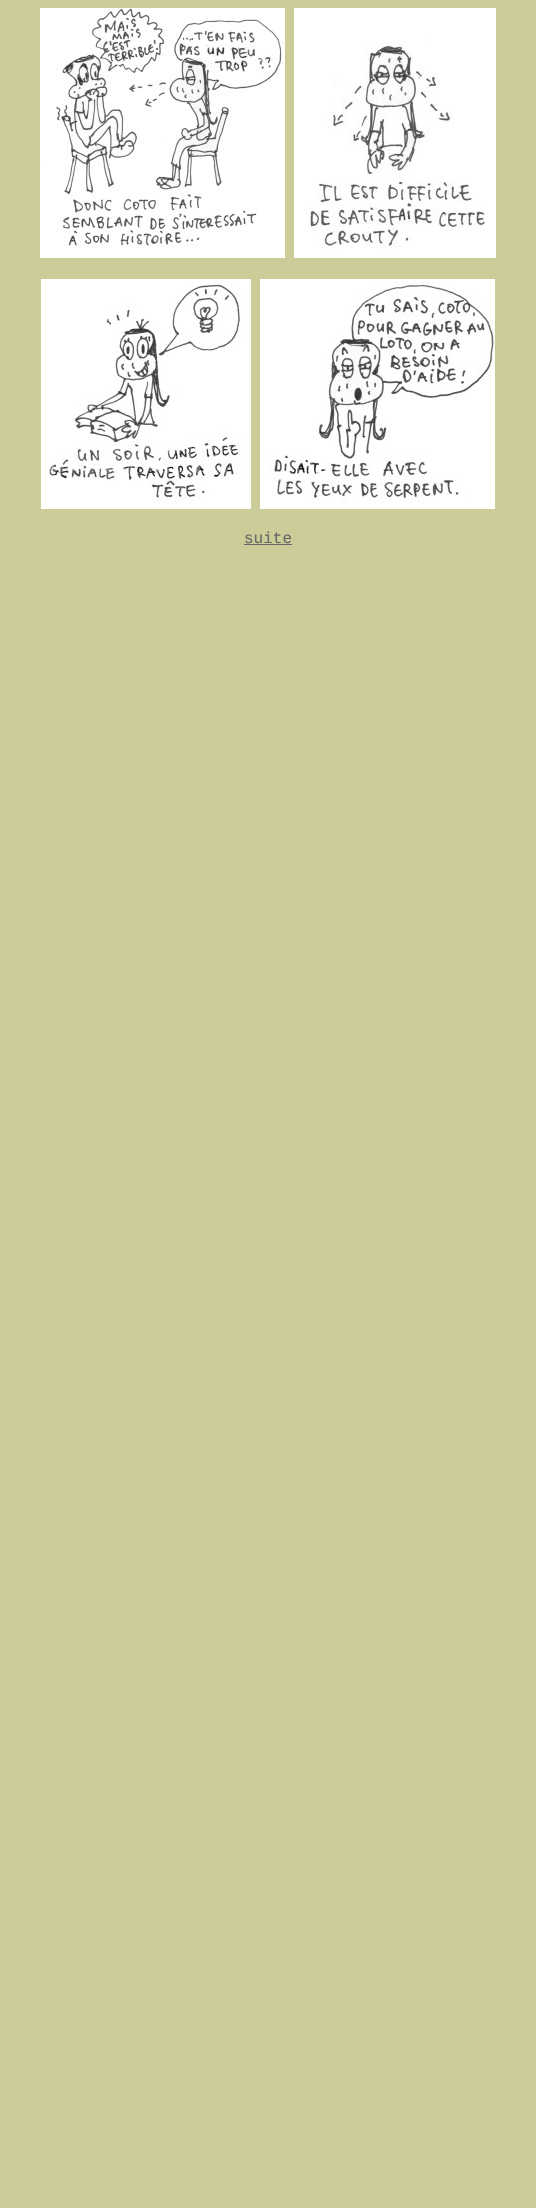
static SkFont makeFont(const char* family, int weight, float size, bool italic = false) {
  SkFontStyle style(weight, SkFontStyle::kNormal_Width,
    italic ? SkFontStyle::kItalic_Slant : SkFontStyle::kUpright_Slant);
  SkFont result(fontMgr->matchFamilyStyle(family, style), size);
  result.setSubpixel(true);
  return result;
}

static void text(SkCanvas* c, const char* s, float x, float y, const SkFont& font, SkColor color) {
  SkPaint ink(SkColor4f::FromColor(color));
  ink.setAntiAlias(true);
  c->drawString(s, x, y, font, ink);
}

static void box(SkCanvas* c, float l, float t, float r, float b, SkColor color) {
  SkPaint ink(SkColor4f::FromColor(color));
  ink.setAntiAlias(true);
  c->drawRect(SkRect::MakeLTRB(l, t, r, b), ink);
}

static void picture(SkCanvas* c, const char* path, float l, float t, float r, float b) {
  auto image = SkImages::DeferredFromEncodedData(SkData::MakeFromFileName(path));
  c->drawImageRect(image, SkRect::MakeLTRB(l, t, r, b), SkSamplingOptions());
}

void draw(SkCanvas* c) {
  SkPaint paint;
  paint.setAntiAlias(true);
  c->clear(0xffcccc99);
  picture(c, "img_01.png", 40, 8, 285, 258);
  picture(c, "img_02.png", 294, 8, 496, 258);
  picture(c, "img_03.png", 41, 279, 251, 509);
  picture(c, "img_04.png", 260, 279, 495, 509);
  SkFont face1 = makeFont("Liberation Mono", 400, 16);
  text(c, "suite", 244, 543, face1, 0xff666666);
  box(c, 244, 544, 292, 545, 0xff666666);
}
